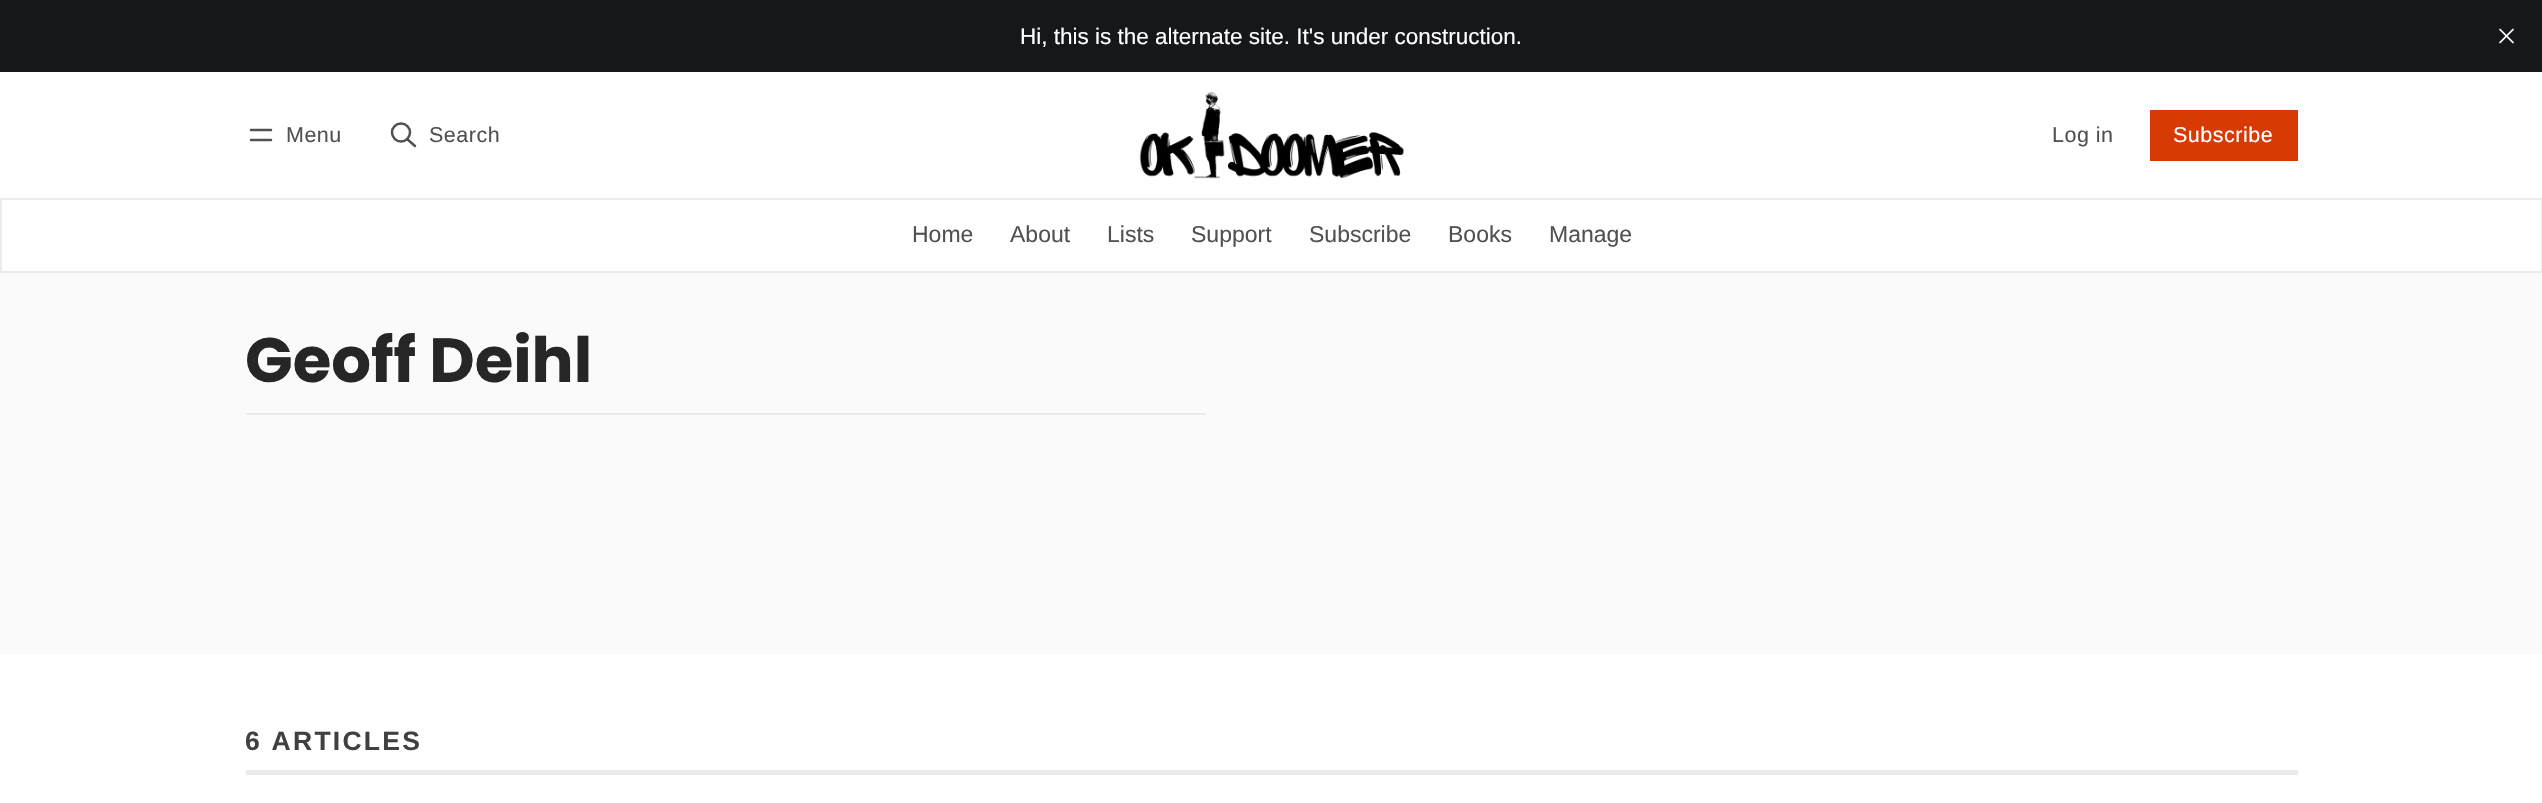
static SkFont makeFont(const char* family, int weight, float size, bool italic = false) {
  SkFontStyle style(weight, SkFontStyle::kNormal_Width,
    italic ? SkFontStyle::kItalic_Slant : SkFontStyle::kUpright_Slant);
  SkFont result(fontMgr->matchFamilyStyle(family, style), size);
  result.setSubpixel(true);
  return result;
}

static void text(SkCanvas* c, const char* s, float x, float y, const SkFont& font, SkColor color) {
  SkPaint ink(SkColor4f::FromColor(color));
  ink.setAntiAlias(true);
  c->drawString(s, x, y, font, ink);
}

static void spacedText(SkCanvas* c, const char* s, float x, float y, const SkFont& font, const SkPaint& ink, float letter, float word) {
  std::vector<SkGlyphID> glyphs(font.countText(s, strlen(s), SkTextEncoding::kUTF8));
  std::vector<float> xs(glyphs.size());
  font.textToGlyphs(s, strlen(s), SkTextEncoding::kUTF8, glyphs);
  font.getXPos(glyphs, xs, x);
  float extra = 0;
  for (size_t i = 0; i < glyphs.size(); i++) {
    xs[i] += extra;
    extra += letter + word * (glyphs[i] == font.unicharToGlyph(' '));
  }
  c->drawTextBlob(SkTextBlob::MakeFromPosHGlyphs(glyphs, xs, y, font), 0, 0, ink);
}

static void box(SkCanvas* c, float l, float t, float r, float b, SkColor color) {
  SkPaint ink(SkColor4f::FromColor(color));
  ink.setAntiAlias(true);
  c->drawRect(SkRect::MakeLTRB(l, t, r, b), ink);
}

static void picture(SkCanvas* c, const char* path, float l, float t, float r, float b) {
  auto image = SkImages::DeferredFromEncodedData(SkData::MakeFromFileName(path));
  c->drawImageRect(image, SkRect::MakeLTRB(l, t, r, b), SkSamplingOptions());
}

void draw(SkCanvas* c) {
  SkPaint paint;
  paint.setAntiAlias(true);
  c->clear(0xffffffff);
  box(c, 0, 0, 2542, 72, 0xff15171a);
  SkFont face1 = makeFont("Liberation Sans", 400, 22.5f);
  text(c, "Hi, this is the alternate site. It's under construction.", 1020, 44, face1, 0xffffffff);
  picture(c, "img_01.png", 2499, 28, 2514, 44);
  paint.setStyle(SkPaint::kStroke_Style);
  paint.setStrokeWidth(2.5f);
  paint.setStrokeCap(SkPaint::kRound_Cap);
  paint.setStrokeJoin(SkPaint::kRound_Join);
  paint.setColor(0xff515151);
  c->drawPath(SkPathBuilder().moveTo(251, 130).lineTo(271, 130).moveTo(251, 140).lineTo(271, 140).detach(), paint);
  SkFont face2 = makeFont("Liberation Sans", 400, 21.5f);
  paint.setStyle(SkPaint::kFill_Style);
  spacedText(c, "Menu", 286, 142, face2, paint, 0.5f, 0);
  paint.setStyle(SkPaint::kStroke_Style);
  paint.setStrokeCap(SkPaint::kButt_Cap);
  paint.setStrokeJoin(SkPaint::kMiter_Join);
  c->drawCircle(401, 132.5f, 9, paint);
  paint.setStrokeCap(SkPaint::kRound_Cap);
  paint.setStrokeJoin(SkPaint::kRound_Join);
  c->drawPath(SkPathBuilder().moveTo(415, 146).lineTo(407, 139).detach(), paint);
  paint.setStyle(SkPaint::kFill_Style);
  spacedText(c, "Search", 429, 142, face2, paint, 0.5f, 0);
  picture(c, "img_02.png", 1139, 91, 1404, 179);
  spacedText(c, "Log in", 2052, 142, face2, paint, 0.5f, 0);
  box(c, 2150, 110, 2298, 161, 0xffd83a05);
  paint.setColor(0xffffffff);
  spacedText(c, "Subscribe", 2173, 142, face2, paint, 0.5f, 0);
  paint.setStyle(SkPaint::kStroke_Style);
  paint.setStrokeWidth(2);
  paint.setStrokeCap(SkPaint::kButt_Cap);
  paint.setStrokeJoin(SkPaint::kMiter_Join);
  paint.setColor(0xffebebeb);
  c->drawRect(SkRect::MakeLTRB(1, 199, 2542, 272), paint);
  SkFont face3 = makeFont("Liberation Sans", 400, 23);
  text(c, "Home", 912, 242, face3, 0xff515151);
  text(c, "About", 1010, 242, face3, 0xff515151);
  text(c, "Lists", 1107, 242, face3, 0xff515151);
  text(c, "Support", 1191, 242, face3, 0xff515151);
  text(c, "Subscribe", 1309, 242, face3, 0xff515151);
  text(c, "Books", 1448, 242, face3, 0xff515151);
  text(c, "Manage", 1549, 242, face3, 0xff515151);
  box(c, 0, 273, 2542, 654, 0xfffafafa);
  box(c, 246, 413, 1206, 415, 0xffebebeb);
  SkFont face4 = makeFont("Poppins", 700, 62.5f);
  text(c, "Geoff Deihl", 245, 382, face4, 0xff262626);
  box(c, 246, 770, 2298, 775, 0xffebebeb);
  SkFont face5 = makeFont("Liberation Sans", 700, 26.5f);
  paint.setStyle(SkPaint::kFill_Style);
  paint.setColor(0xff404040);
  spacedText(c, "6 ARTICLES", 245, 750, face5, paint, 2.25f, 0);
}
